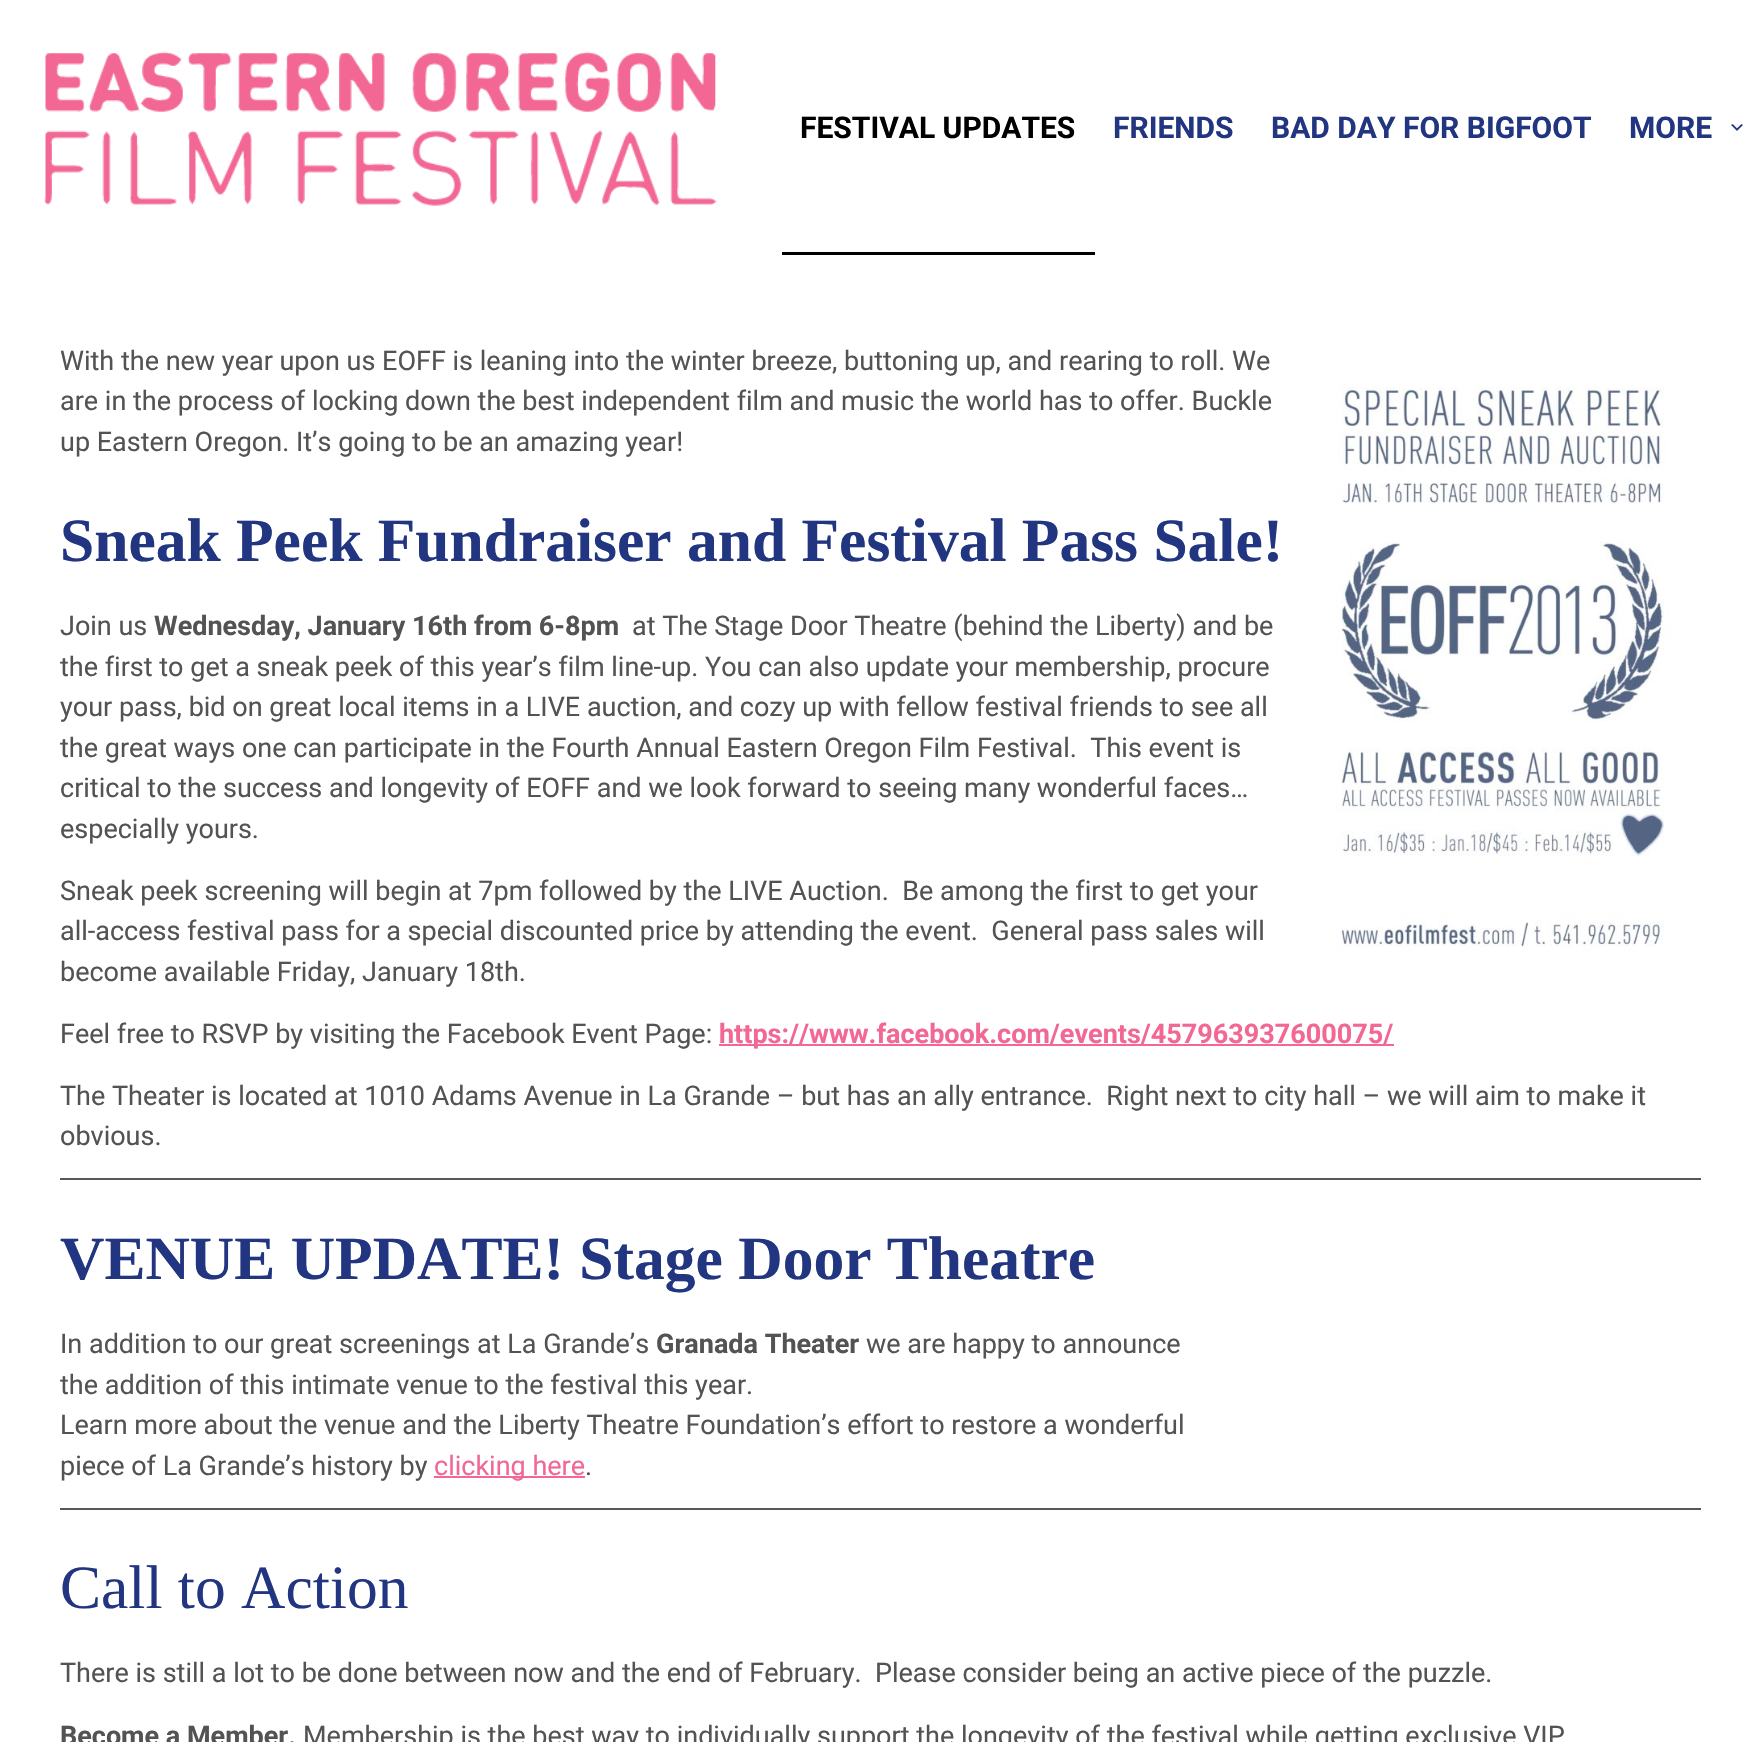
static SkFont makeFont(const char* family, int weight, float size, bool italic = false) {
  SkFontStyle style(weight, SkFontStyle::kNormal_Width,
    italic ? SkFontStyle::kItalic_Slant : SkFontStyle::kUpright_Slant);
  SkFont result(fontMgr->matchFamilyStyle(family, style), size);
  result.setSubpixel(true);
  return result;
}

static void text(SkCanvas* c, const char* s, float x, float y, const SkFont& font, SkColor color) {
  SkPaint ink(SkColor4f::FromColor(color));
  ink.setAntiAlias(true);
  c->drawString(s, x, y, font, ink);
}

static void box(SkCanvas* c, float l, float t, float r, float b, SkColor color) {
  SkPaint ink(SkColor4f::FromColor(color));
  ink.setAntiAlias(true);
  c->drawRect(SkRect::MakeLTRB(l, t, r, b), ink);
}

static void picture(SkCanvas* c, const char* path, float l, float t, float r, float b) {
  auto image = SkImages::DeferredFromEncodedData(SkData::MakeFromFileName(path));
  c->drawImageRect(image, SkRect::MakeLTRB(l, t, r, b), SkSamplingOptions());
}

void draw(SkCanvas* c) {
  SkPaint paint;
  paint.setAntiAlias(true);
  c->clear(0xffffffff);
  picture(c, "img_01.png", 44, 51, 717, 206);
  SkFont face1 = makeFont("Roboto", 700, 30);
  text(c, "FESTIVAL UPDATES", 800, 138, face1, 0xff000000);
  box(c, 782, 252, 1095, 255, 0xff000000);
  text(c, "FRIENDS", 1113, 138, face1, 0xff223581);
  text(c, "BAD DAY FOR BIGFOOT", 1271, 138, face1, 0xff223581);
  text(c, "MORE", 1629, 138, face1, 0xff223581);
  picture(c, "img_02.png", 1731, 124, 1743, 131);
  SkFont face2 = makeFont("Roboto", 400, 27);
  text(c, "With the new year upon us EOFF is leaning into the winter breeze, buttoning up, and rearing to roll. We", 60, 370, face2, 0xff535353);
  text(c, "are in the process of locking down the best independent film and music the world has to offer. Buckle", 60, 410, face2, 0xff535353);
  text(c, "up Eastern Oregon. It’s going to be an amazing year!", 60, 451, face2, 0xff535353);
  picture(c, "img_03.png", 1335, 386, 1670, 952);
  SkFont face3 = makeFont("Liberation Serif", 700, 61.5f);
  text(c, "Sneak Peek Fundraiser and Festival Pass Sale!", 60, 561, face3, 0xff223581);
  text(c, "Join us", 60, 635, face2, 0xff535353);
  SkFont face4 = makeFont("Roboto", 700, 27);
  text(c, "Wednesday, January 16th from 6-8pm", 154, 635, face4, 0xff535353);
  text(c, "at The Stage Door Theatre (behind the Liberty) and be", 632, 635, face2, 0xff535353);
  text(c, "the first to get a sneak peek of this year’s film line-up. You can also update your membership, procure", 60, 676, face2, 0xff535353);
  text(c, "your pass, bid on great local items in a LIVE auction, and cozy up with fellow festival friends to see all", 60, 716, face2, 0xff535353);
  text(c, "the great ways one can participate in the Fourth Annual Eastern Oregon Film Festival.  This event is", 60, 757, face2, 0xff535353);
  text(c, "critical to the success and longevity of EOFF and we look forward to seeing many wonderful faces…", 60, 797, face2, 0xff535353);
  text(c, "especially yours.", 60, 838, face2, 0xff535353);
  text(c, "Sneak peek screening will begin at 7pm followed by the LIVE Auction.  Be among the first to get your", 60, 900, face2, 0xff535353);
  text(c, "all-access festival pass for a special discounted price by attending the event.  General pass sales will", 60, 940, face2, 0xff535353);
  text(c, "become available Friday, January 18th.", 60, 981, face2, 0xff535353);
  text(c, "Feel free to RSVP by visiting the Facebook Event Page:", 60, 1043, face2, 0xff535353);
  box(c, 719, 1044, 1394, 1046, 0xfff26793);
  text(c, "https://www.facebook.com/events/457963937600075/", 719, 1043, face4, 0xfff26793);
  text(c, "The Theater is located at 1010 Adams Avenue in La Grande – but has an ally entrance.  Right next to city hall – we will aim to make it", 60, 1105, face2, 0xff535353);
  text(c, "obvious.", 60, 1145, face2, 0xff535353);
  box(c, 60, 1178, 1701, 1180, 0xff575757);
  text(c, "VENUE UPDATE! Stage Door Theatre", 60, 1279, face3, 0xff223581);
  text(c, "In addition to our great screenings at La Grande’s", 60, 1353, face2, 0xff535353);
  text(c, "Granada Theater", 656, 1353, face4, 0xff535353);
  text(c, "we are happy to announce", 866, 1353, face2, 0xff535353);
  text(c, "the addition of this intimate venue to the festival this year.", 60, 1394, face2, 0xff535353);
  text(c, "Learn more about the venue and the Liberty Theatre Foundation’s effort to restore a wonderful", 60, 1434, face2, 0xff535353);
  text(c, "piece of La Grande’s history by", 60, 1475, face2, 0xff535353);
  box(c, 434, 1476, 585, 1478, 0xfff26793);
  text(c, "clicking here", 434, 1475, face2, 0xfff26793);
  text(c, ".", 585, 1475, face2, 0xff535353);
  box(c, 60, 1508, 1701, 1510, 0xff575757);
  SkFont face5 = makeFont("Liberation Serif", 400, 61.5f);
  text(c, "Call to Action", 60, 1608, face5, 0xff223581);
  text(c, "There is still a lot to be done between now and the end of February.  Please consider being an active piece of the puzzle.", 60, 1682, face2, 0xff535353);
  text(c, "Become a Member.", 60, 1745, face4, 0xff535353);
  text(c, "Membership is the best way to individually support the longevity of the festival while getting exclusive VIP", 303, 1745, face2, 0xff535353);
}
